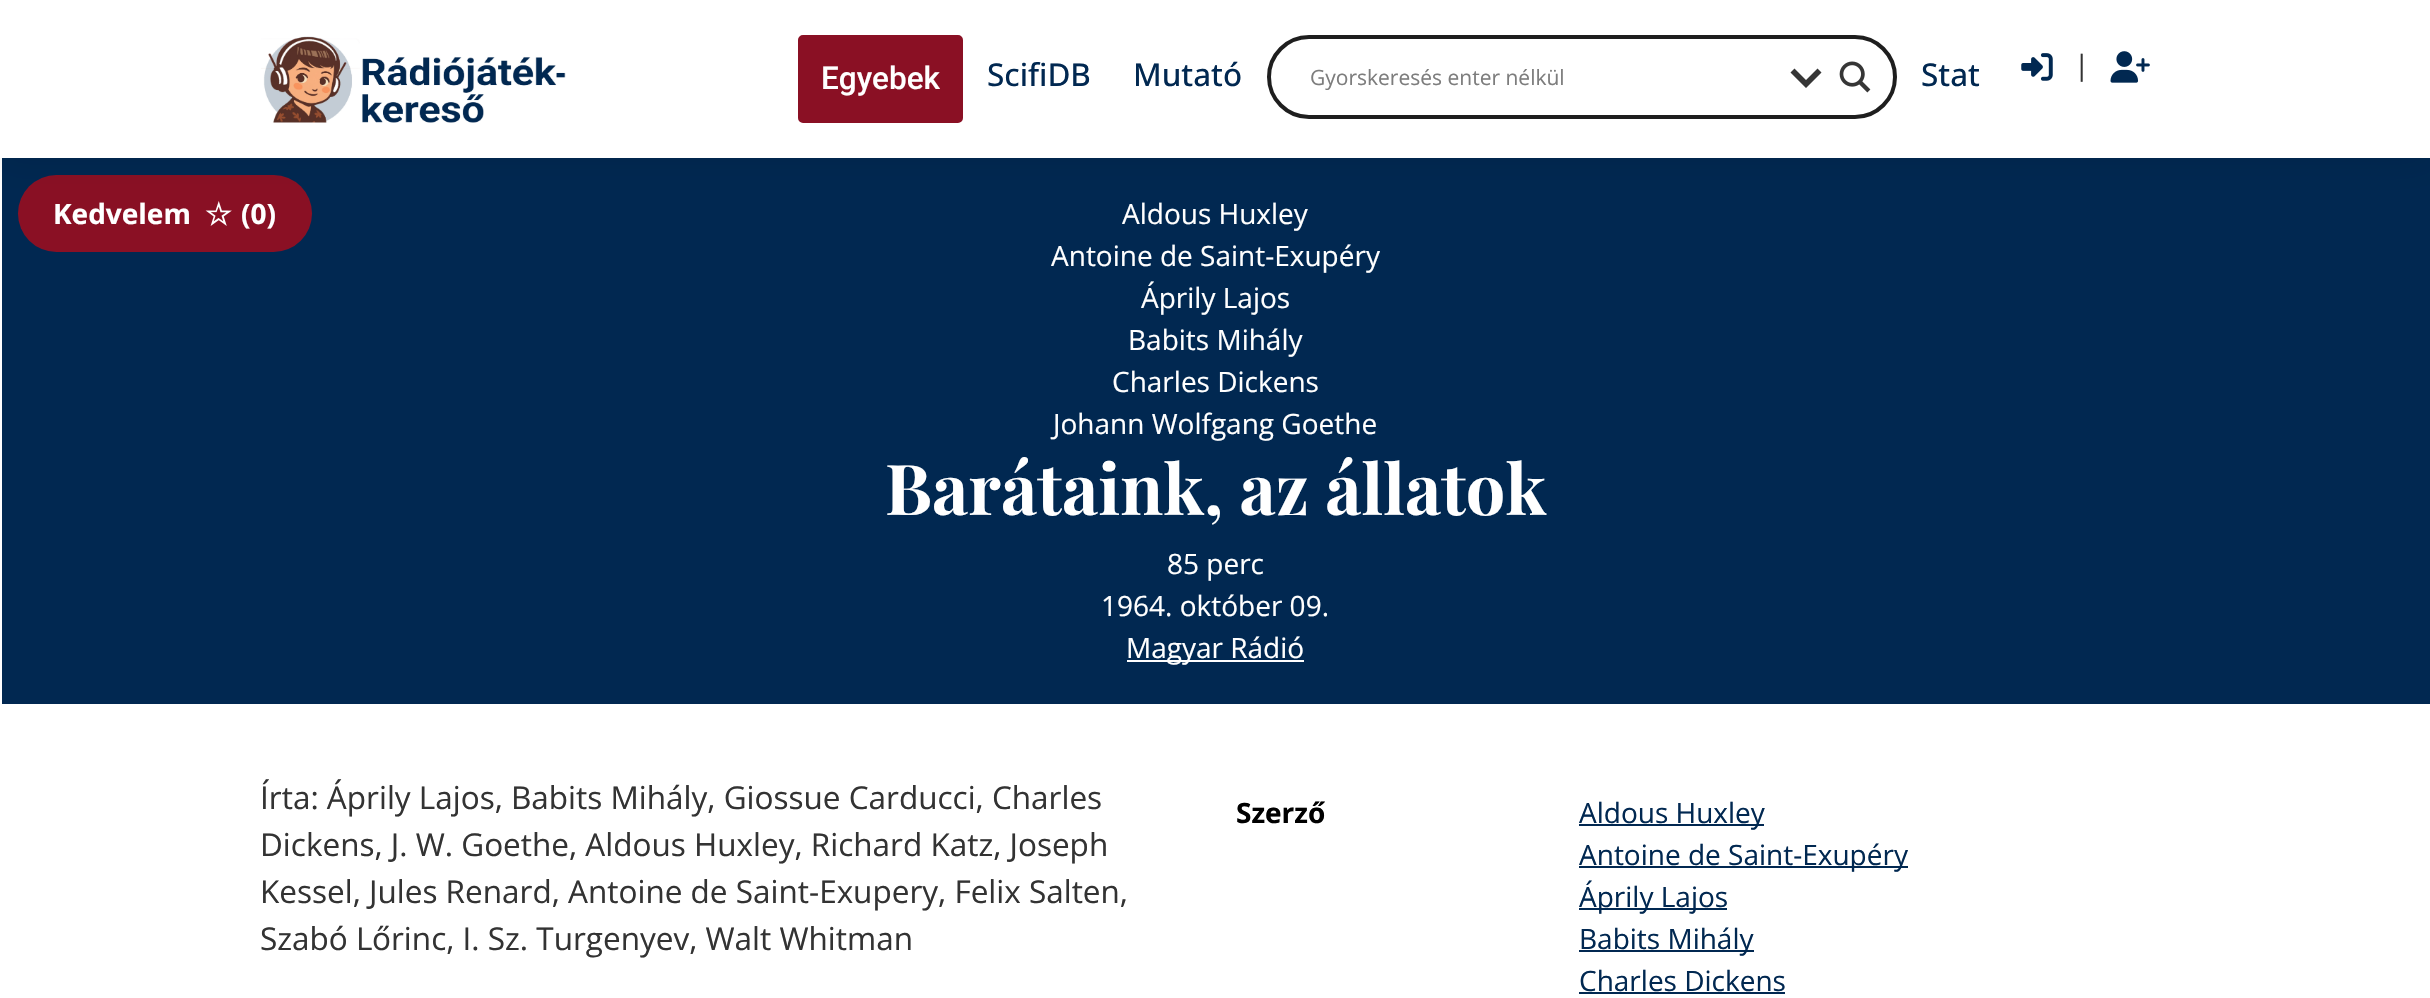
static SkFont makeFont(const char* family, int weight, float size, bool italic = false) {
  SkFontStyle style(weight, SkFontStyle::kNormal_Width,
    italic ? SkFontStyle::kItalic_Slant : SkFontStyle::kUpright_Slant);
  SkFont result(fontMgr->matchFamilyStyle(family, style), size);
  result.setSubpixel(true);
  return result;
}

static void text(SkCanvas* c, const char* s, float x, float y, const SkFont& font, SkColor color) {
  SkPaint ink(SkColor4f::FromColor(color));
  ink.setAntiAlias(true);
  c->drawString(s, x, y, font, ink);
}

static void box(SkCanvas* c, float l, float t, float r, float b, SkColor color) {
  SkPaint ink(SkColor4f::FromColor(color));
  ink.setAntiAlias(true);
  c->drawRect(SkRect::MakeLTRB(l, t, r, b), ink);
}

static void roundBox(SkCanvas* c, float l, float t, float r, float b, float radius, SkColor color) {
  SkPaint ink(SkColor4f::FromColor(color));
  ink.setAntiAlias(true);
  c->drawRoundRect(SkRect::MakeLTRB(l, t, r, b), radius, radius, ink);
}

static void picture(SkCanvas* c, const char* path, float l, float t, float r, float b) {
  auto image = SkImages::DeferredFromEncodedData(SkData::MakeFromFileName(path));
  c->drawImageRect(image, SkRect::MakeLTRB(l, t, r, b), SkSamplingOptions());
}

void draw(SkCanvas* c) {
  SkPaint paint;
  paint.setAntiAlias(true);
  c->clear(0xffffffff);
  box(c, 2, 158, 2430, 704, 0xff012851);
  roundBox(c, 18, 175, 312, 252, 38.5f, 0xff8a1024);
  picture(c, "img_05.png", 205, 201, 232, 226);
  paint.setColor(0x1a000000);
  paint.setMaskFilter(SkMaskFilter::MakeBlur(kNormal_SkBlurStyle, 17.5f));
  c->drawRect(SkRect::MakeLTRB(0, 0, 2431, 158), paint);
  paint.setMaskFilter(nullptr);
  box(c, 0, 0, 2430, 158, 0xffffffff);
  picture(c, "img_01.png", 261, 36, 566, 123);
  paint.setColor(0xff8a1024);
  c->drawRoundRect(SkRect::MakeLTRB(800.5f, 37.5f, 960.5f, 120.5f), 2.5f, 2.5f, paint);
  paint.setStyle(SkPaint::kStroke_Style);
  paint.setStrokeWidth(5);
  c->drawRoundRect(SkRect::MakeLTRB(800.5f, 37.5f, 960.5f, 120.5f), 2.5f, 2.5f, paint);
  SkFont face1 = makeFont("Roboto", 500, 31.5f);
  text(c, "Egyebek", 821, 89, face1, 0xffffffff);
  SkFont face2 = makeFont("Open Sans", 500, 31.5f);
  text(c, "ScifiDB", 987, 86, face2, 0xff012851);
  text(c, "Mutató", 1133, 86, face2, 0xff012851);
  paint.setStrokeWidth(4);
  paint.setColor(0xff1e1e1e);
  c->drawRoundRect(SkRect::MakeLTRB(1269, 37, 1895, 117), 40, 40, paint);
  SkFont face3 = makeFont("Open Sans", 400, 21);
  text(c, "Gyorskeresés enter nélkül", 1310, 85, face3, 0xff7d7d7d);
  paint.setStyle(SkPaint::kFill_Style);
  paint.setColor(0xff363636);
  c->drawPath(SkPathBuilder().moveTo(1817.5f, 68.5f).lineTo(1821.5f, 72.5f).lineTo(1806, 88).lineTo(1790.5f, 72.5f).lineTo(1794.5f, 68.5f).lineTo(1806, 80).close().detach(), paint);
  picture(c, "img_02.png", 1839, 61, 1871, 93);
  text(c, "Stat", 1921, 86, face2, 0xff012851);
  picture(c, "img_03.png", 2021, 53, 2053, 81);
  SkFont face4 = makeFont("Open Sans", 400, 28);
  text(c, "|", 2074, 75, face4, 0xff333333);
  picture(c, "img_04.png", 2110, 51, 2150, 83);
  SkFont face5 = makeFont("Open Sans", 700, 28);
  text(c, "Kedvelem", 53, 224, face5, 0xffffffff);
  text(c, "(0)", 241, 224, face5, 0xffffffff);
  text(c, "Aldous Huxley", 1122, 224, face4, 0xffffffff);
  text(c, "Antoine de Saint-Exupéry", 1051, 266, face4, 0xffffffff);
  text(c, "Áprily Lajos", 1141, 308, face4, 0xffffffff);
  text(c, "Babits Mihály", 1128, 350, face4, 0xffffffff);
  text(c, "Charles Dickens", 1112, 392, face4, 0xffffffff);
  text(c, "Johann Wolfgang Goethe", 1053, 434, face4, 0xffffffff);
  SkFont face6 = makeFont("Playfair Display", 700, 70);
  text(c, "Barátaink, az állatok", 885, 515, face6, 0xffffffff);
  text(c, "85 perc", 1167, 574, face4, 0xffffffff);
  text(c, "1964. október 09.", 1101, 616, face4, 0xffffffff);
  box(c, 1127, 660, 1304, 662, 0xffffffff);
  text(c, "Magyar Rádió", 1126, 658, face4, 0xffffffff);
  SkFont face7 = makeFont("Open Sans", 400, 31.5f);
  text(c, "Írta: Áprily Lajos, Babits Mihály, Giossue Carducci, Charles", 260, 809, face7, 0xff333333);
  text(c, "Dickens, J. W. Goethe, Aldous Huxley, Richard Katz, Joseph", 260, 856, face7, 0xff333333);
  text(c, "Kessel, Jules Renard, Antoine de Saint-Exupery, Felix Salten,", 260, 903, face7, 0xff333333);
  text(c, "Szabó L", 260, 950, face7, 0xff333333);
  SkFont face8 = makeFont("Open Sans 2", 400, 31.5f);
  text(c, "ő", 372, 950, face8, 0xff333333);
  text(c, "rinc, I. Sz. Turgenyev, Walt Whitman", 391, 950, face7, 0xff333333);
  text(c, "Szerző", 1236, 823, face5, 0xff000000);
  box(c, 1579, 824, 1764, 826, 0xff012851);
  text(c, "Aldous Huxley", 1579, 823, face4, 0xff012851);
  box(c, 1579, 866, 1908, 868, 0xff012851);
  text(c, "Antoine de Saint-Exupéry", 1579, 865, face4, 0xff012851);
  box(c, 1579, 908, 1727, 910, 0xff012851);
  text(c, "Áprily Lajos", 1579, 907, face4, 0xff012851);
  box(c, 1579, 950, 1754, 952, 0xff012851);
  text(c, "Babits Mihály", 1579, 949, face4, 0xff012851);
  text(c, "Charles Dickens", 1579, 991, face4, 0xff012851);
  box(c, 1579, 992, 1785, 994, 0xff012851);
}
